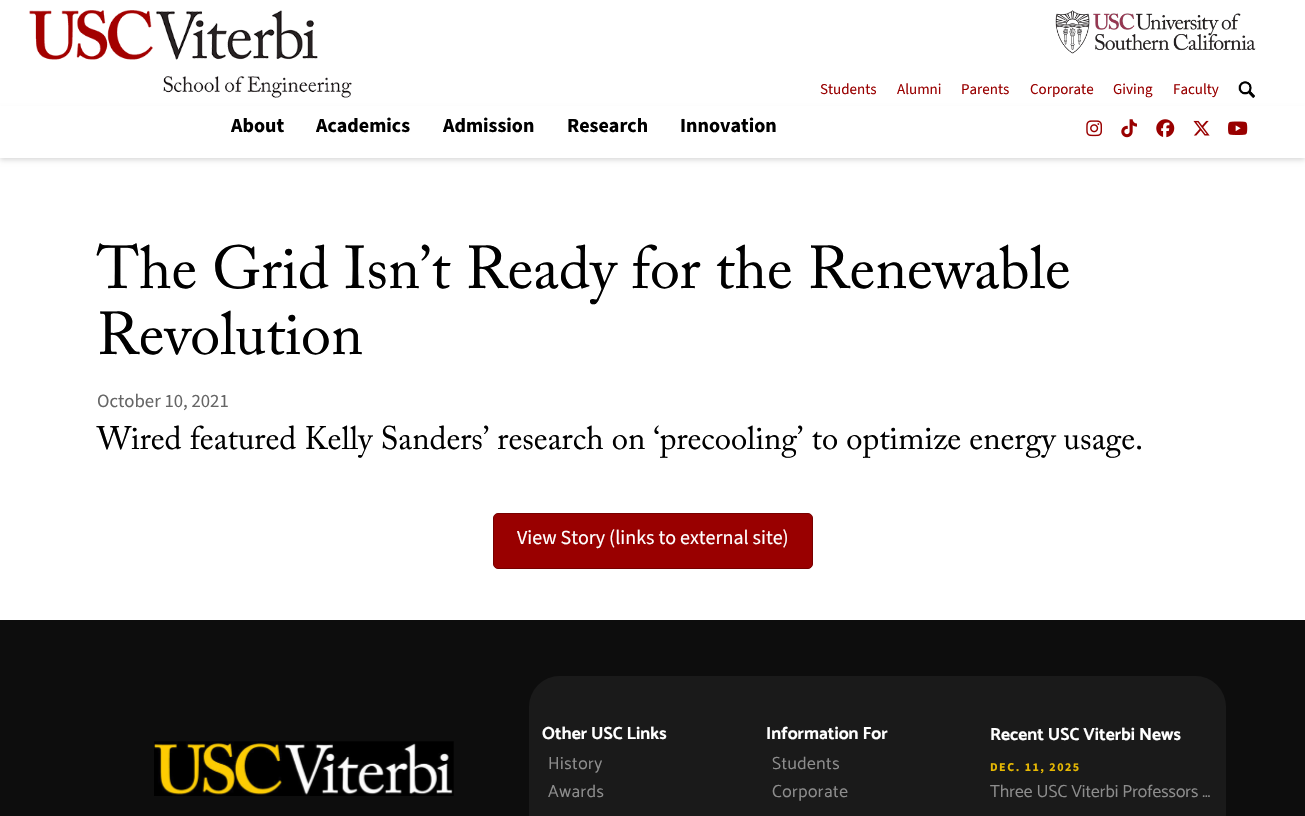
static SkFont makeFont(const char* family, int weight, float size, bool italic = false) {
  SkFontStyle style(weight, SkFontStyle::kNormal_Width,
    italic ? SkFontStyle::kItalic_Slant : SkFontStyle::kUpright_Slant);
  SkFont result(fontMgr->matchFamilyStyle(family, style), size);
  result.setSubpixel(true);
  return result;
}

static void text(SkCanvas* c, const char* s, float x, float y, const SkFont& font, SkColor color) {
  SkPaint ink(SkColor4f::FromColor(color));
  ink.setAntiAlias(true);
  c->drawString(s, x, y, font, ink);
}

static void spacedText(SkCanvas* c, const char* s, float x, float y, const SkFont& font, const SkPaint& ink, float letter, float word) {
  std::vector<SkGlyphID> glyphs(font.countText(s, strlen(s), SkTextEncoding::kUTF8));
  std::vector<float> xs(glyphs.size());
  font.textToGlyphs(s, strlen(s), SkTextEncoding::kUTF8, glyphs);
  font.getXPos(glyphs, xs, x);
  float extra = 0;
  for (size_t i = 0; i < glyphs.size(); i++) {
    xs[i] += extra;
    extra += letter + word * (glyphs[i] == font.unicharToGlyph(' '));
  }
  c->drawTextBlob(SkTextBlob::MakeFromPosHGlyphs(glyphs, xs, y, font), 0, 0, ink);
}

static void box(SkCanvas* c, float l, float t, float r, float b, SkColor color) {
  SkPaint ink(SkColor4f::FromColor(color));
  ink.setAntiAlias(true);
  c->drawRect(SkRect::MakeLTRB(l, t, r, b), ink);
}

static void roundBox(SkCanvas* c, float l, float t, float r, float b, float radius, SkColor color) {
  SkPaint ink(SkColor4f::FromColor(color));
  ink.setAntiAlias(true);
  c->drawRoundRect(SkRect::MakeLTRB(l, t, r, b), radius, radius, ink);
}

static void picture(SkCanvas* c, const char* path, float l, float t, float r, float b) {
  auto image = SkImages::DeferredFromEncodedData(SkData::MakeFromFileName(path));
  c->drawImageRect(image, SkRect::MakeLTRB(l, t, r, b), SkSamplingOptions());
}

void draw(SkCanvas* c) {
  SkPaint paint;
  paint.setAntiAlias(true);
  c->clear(0xffffffff);
  picture(c, "img_01.png", 29, 10, 352, 98);
  picture(c, "img_02.png", 1055, 10, 1256, 54);
  SkFont face1 = makeFont("Source Sans 3", 400, 15);
  text(c, "Students", 820, 94, face1, 0xff990000);
  text(c, "Alumni", 897, 94, face1, 0xff990000);
  text(c, "Parents", 961, 94, face1, 0xff990000);
  text(c, "Corporate", 1030, 94, face1, 0xff990000);
  text(c, "Giving", 1113, 94, face1, 0xff990000);
  text(c, "Faculty", 1173, 94, face1, 0xff990000);
  picture(c, "img_03.png", 1238, 81, 1255, 98);
  paint.setColor(0x26000000);
  paint.setMaskFilter(SkMaskFilter::MakeBlur(kNormal_SkBlurStyle, 2.5f));
  c->drawRect(SkRect::MakeLTRB(0, 110, 1305, 160), paint);
  paint.setMaskFilter(nullptr);
  box(c, 0, 106, 1305, 158, 0xffffffff);
  SkFont face2 = makeFont("Source Sans 3", 700, 20);
  text(c, "About", 231, 132, face2, 0xff000000);
  text(c, "Academics", 316, 132, face2, 0xff000000);
  text(c, "Admission", 443, 132, face2, 0xff000000);
  text(c, "Research", 567, 132, face2, 0xff000000);
  text(c, "Innovation", 680, 132, face2, 0xff000000);
  picture(c, "img_04.png", 1086, 120, 1102, 137);
  picture(c, "img_05.png", 1121, 119, 1137, 138);
  picture(c, "img_06.png", 1156, 119, 1175, 138);
  picture(c, "img_07.png", 1193, 120, 1210, 136);
  picture(c, "img_08.png", 1228, 121, 1248, 135);
  SkFont face3 = makeFont("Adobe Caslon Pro", 400, 60);
  text(c, "The Grid Isn’t Ready for the Renewable", 97, 288, face3, 0xff000000);
  text(c, "Revolution", 97, 354, face3, 0xff000000);
  SkFont face4 = makeFont("Source Sans 3", 400, 18.75f);
  text(c, "October 10, 2021", 97, 407, face4, 0xff666666);
  SkFont face5 = makeFont("Adobe Caslon Pro", 400, 32.5f);
  text(c, "Wired featured Kelly Sanders’ research on ‘precooling’ to optimize energy usage.", 97, 449, face5, 0xff000000);
  paint.setColor(0xff990000);
  c->drawRoundRect(SkRect::MakeLTRB(493.5f, 513.5f, 812.5f, 568.5f), 4.5f, 4.5f, paint);
  paint.setStyle(SkPaint::kStroke_Style);
  paint.setStrokeWidth(1);
  paint.setColor(0xff770000);
  c->drawRoundRect(SkRect::MakeLTRB(493.5f, 513.5f, 812.5f, 568.5f), 4.5f, 4.5f, paint);
  SkFont face6 = makeFont("Source Sans 3", 400, 20);
  text(c, "View Story (links to external site)", 517, 544, face6, 0xffffffff);
  box(c, 0, 620, 1305, 816, 0xff0d0d0d);
  picture(c, "img_09.png", 154, 741, 454, 796);
  roundBox(c, 529, 676, 1226, 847, 31, 0xff1a1a1a);
  SkFont face7 = makeFont("Catamaran", 700, 17.5f);
  text(c, "Other USC Links", 542, 739, face7, 0xffffffff);
  SkFont face8 = makeFont("Catamaran", 400, 17.5f);
  paint.setStyle(SkPaint::kFill_Style);
  paint.setColor(0xff8d8d8d);
  spacedText(c, "History", 548, 769, face8, paint, 0.5f, 0);
  spacedText(c, "Awards", 548, 797, face8, paint, 0.5f, 0);
  text(c, "Information For", 766, 739, face7, 0xffffffff);
  spacedText(c, "Students", 772, 769, face8, paint, 0.5f, 0);
  spacedText(c, "Corporate", 772, 797, face8, paint, 0.5f, 0);
  text(c, "Recent USC Viterbi News", 990, 740, face7, 0xffffffff);
  SkFont face9 = makeFont("Source Sans 3", 700, 12);
  paint.setColor(0xffe6b803);
  spacedText(c, "DEC. 11, 2025", 990, 771, face9, paint, 1.5f, 0);
  text(c, "Three USC Viterbi Professors …", 990, 797, face8, 0xff8d8d8d);
}
